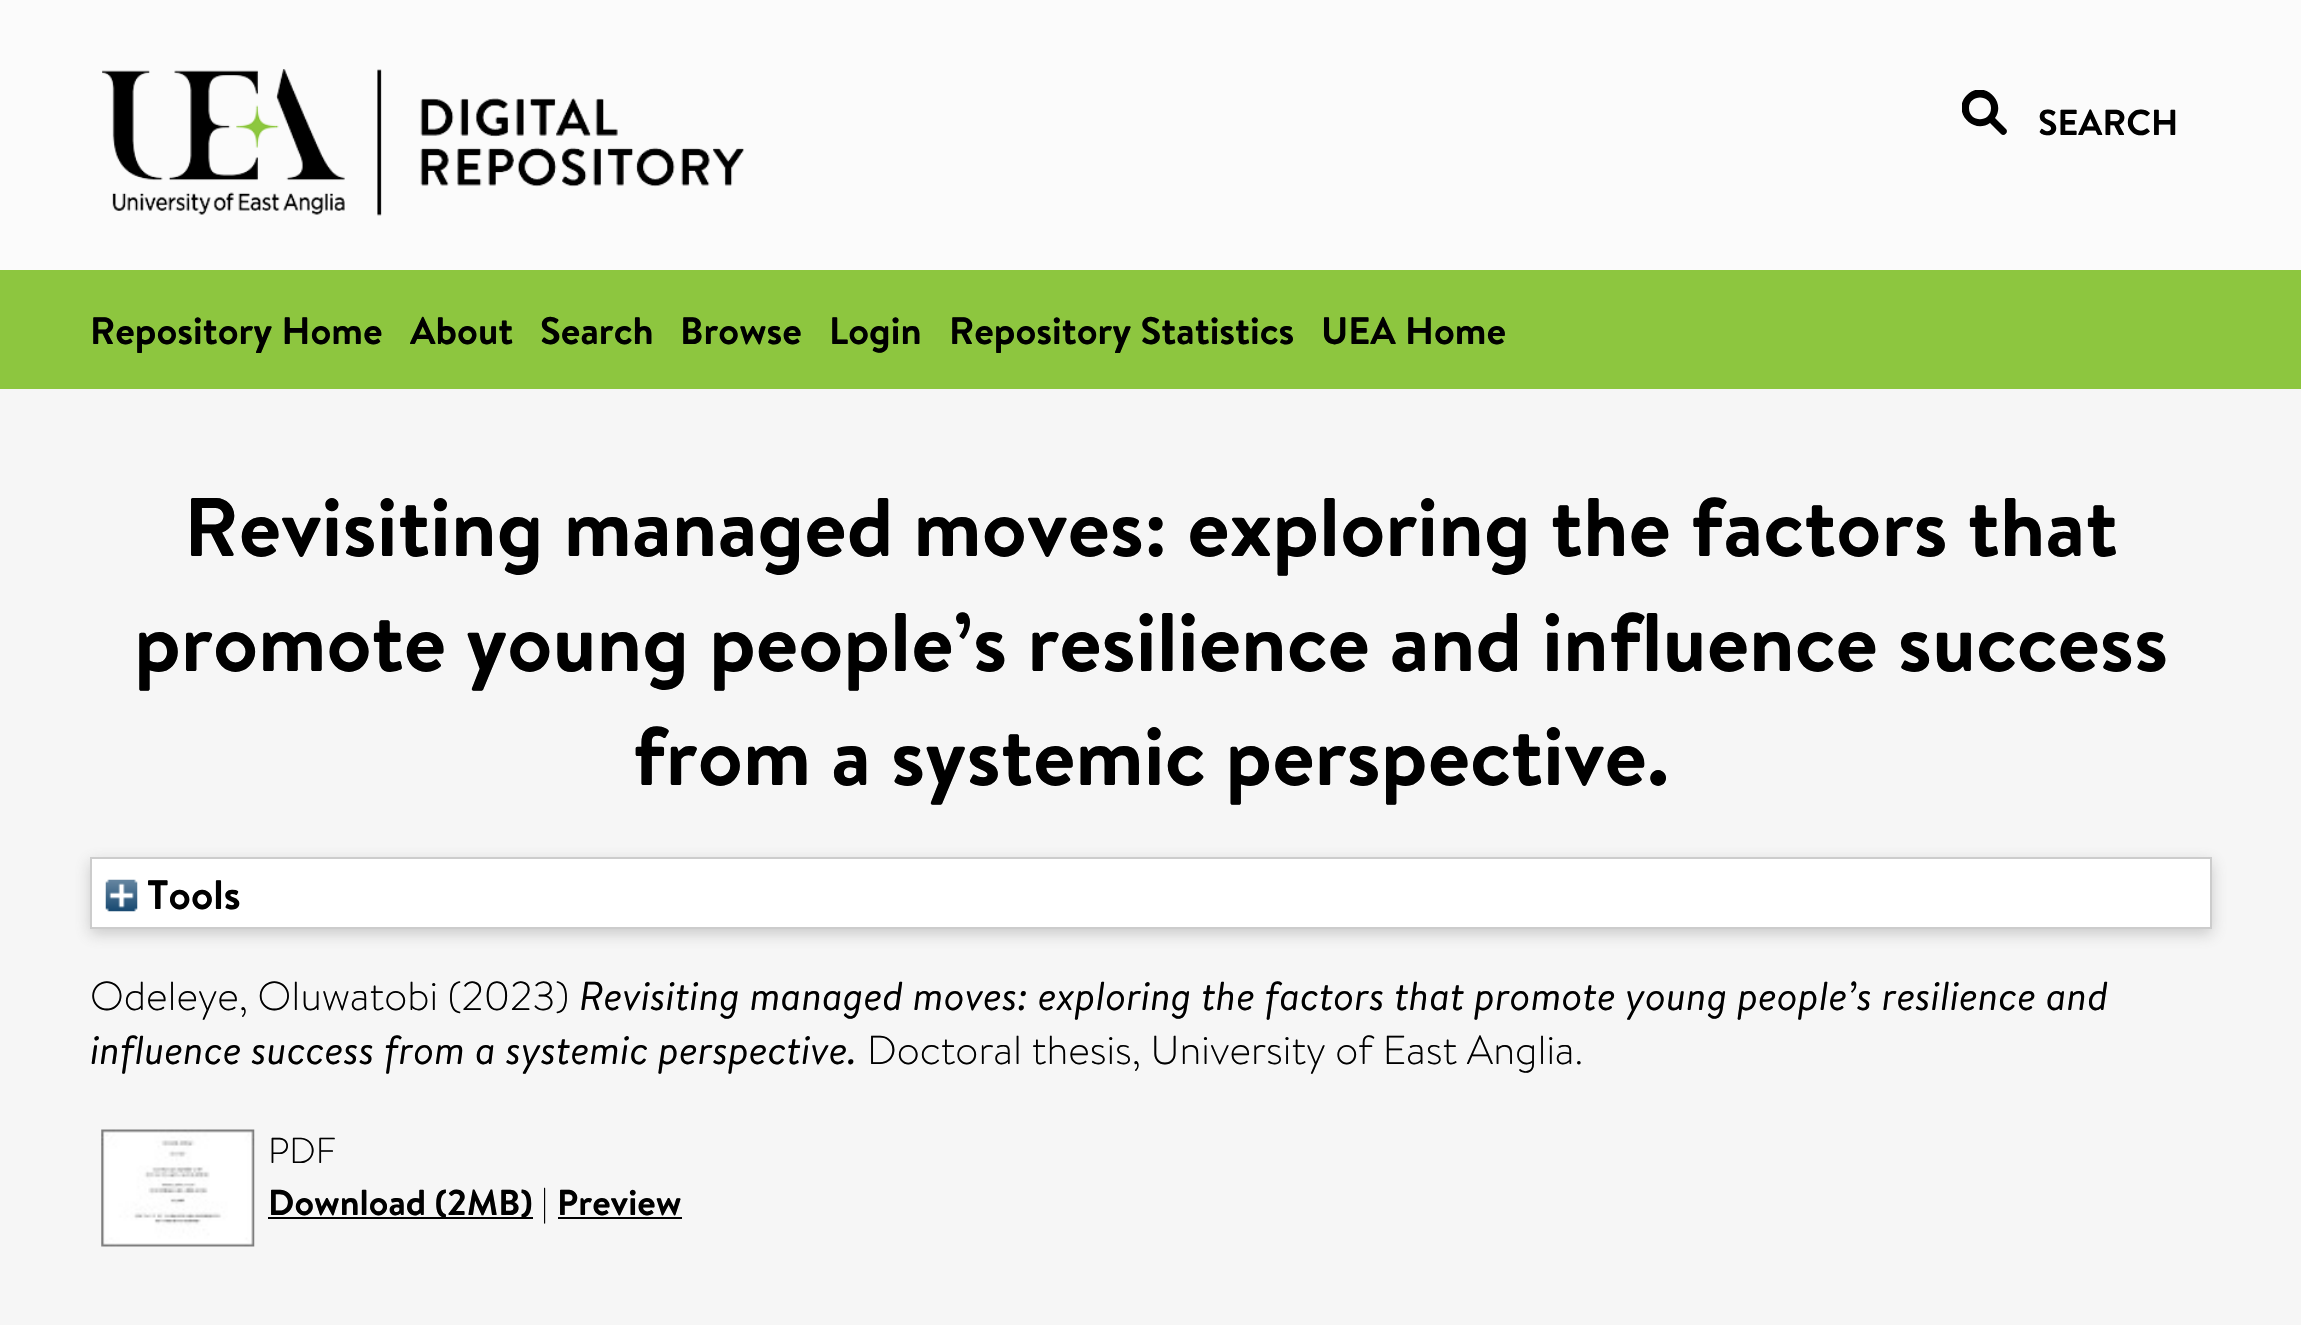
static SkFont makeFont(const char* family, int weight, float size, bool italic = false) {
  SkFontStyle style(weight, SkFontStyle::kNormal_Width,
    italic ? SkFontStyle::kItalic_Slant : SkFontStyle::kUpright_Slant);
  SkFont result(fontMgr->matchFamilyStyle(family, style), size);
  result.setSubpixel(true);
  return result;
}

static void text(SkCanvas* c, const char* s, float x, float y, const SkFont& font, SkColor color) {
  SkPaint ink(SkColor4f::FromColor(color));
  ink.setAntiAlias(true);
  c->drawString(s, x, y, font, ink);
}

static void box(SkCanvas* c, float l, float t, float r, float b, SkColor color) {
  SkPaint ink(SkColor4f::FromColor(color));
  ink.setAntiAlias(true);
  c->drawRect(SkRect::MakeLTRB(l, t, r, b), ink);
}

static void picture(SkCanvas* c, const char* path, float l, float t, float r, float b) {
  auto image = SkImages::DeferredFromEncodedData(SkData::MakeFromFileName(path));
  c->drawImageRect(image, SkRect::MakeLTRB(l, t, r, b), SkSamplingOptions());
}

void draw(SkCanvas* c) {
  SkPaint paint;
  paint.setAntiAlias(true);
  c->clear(0xfff6f6f6);
  box(c, 0, 0, 2301, 270, 0xfffbfbfb);
  picture(c, "img_01.png", 102, 69, 745, 216);
  SkFont face1 = makeFont("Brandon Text", 700, 36);
  text(c, "SEARCH", 2038, 135, face1, 0xff000000);
  c->save();
  c->clipRect(SkRect::MakeLTRB(1962, 90, 2007, 135));
  paint.setColor(0xff000000);
  c->drawPath(SkPathBuilder().moveTo(2006, 129).lineTo(1995, 118).cubicTo(2007, 101, 1983, 79, 1967, 95).cubicTo(1951, 111, 1973, 135, 1990, 123).lineTo(2001, 134).cubicTo(2004, 137, 2009, 132, 2006, 129).close().moveTo(1969, 108).cubicTo(1969, 94, 1991, 94, 1991, 108).cubicTo(1991, 123, 1969, 123, 1969, 108).close().detach(), paint);
  c->restore();
  box(c, 0, 270, 2301, 389, 0xff8dc63f);
  SkFont face2 = makeFont("Brandon Text", 700, 38.25f);
  text(c, "Repository Home", 90, 344, face2, 0xff000000);
  text(c, "About", 410, 344, face2, 0xff000000);
  text(c, "Search", 540, 344, face2, 0xff000000);
  text(c, "Browse", 680, 344, face2, 0xff000000);
  text(c, "Login", 829, 344, face2, 0xff000000);
  text(c, "Repository Statistics", 949, 344, face2, 0xff000000);
  text(c, "UEA Home", 1321, 344, face2, 0xff000000);
  SkFont face3 = makeFont("Brandon Text", 700, 82.8f);
  text(c, "Revisiting managed moves: exploring the factors that", 184, 556, face3, 0xff000000);
  text(c, "promote young people’s resilience and influence success", 134, 671, face3, 0xff000000);
  text(c, "from a systemic perspective.", 633, 785, face3, 0xff000000);
  paint.setColor(0x4d646464);
  paint.setMaskFilter(SkMaskFilter::MakeBlur(kNormal_SkBlurStyle, 7));
  c->drawRect(SkRect::MakeLTRB(90, 862, 2212, 934), paint);
  paint.setMaskFilter(nullptr);
  paint.setColor(0xffffffff);
  c->drawRect(SkRect::MakeLTRB(91, 858, 2211, 928), paint);
  paint.setStyle(SkPaint::kStroke_Style);
  paint.setStrokeWidth(2);
  paint.setColor(0xffcccccc);
  c->drawRect(SkRect::MakeLTRB(91, 858, 2211, 928), paint);
  picture(c, "img_02.png", 105, 879, 138, 912);
  SkFont face4 = makeFont("Brandon Text", 700, 41);
  text(c, "Tools", 147, 909, face4, 0xff000000);
  SkFont face5 = makeFont("Brandon Text", 300, 40.5f);
  text(c, "Odeleye, Oluwatobi (2023)", 90, 1010, face5, 0xff000000);
  SkFont face6 = makeFont("Brandon Text", 400, 40.5f, true);
  text(c, "Revisiting managed moves: exploring the factors that promote young people’s resilience and", 579, 1010, face6, 0xff000000);
  text(c, "influence success from a systemic perspective.", 90, 1064, face6, 0xff000000);
  text(c, "Doctoral thesis, University of East Anglia.", 867, 1064, face5, 0xff000000);
  picture(c, "img_03.png", 101, 1129, 255, 1247);
  SkFont face7 = makeFont("Brandon Text", 300, 36);
  text(c, "PDF", 268, 1163, face7, 0xff000000);
  box(c, 268, 1217, 533, 1219, 0xff000000);
  text(c, "Download (2MB)", 268, 1215, face1, 0xff000000);
  text(c, "|", 541, 1215, face7, 0xff000000);
  text(c, "Preview", 557, 1215, face1, 0xff000000);
  box(c, 558, 1217, 682, 1219, 0xff000000);
}
